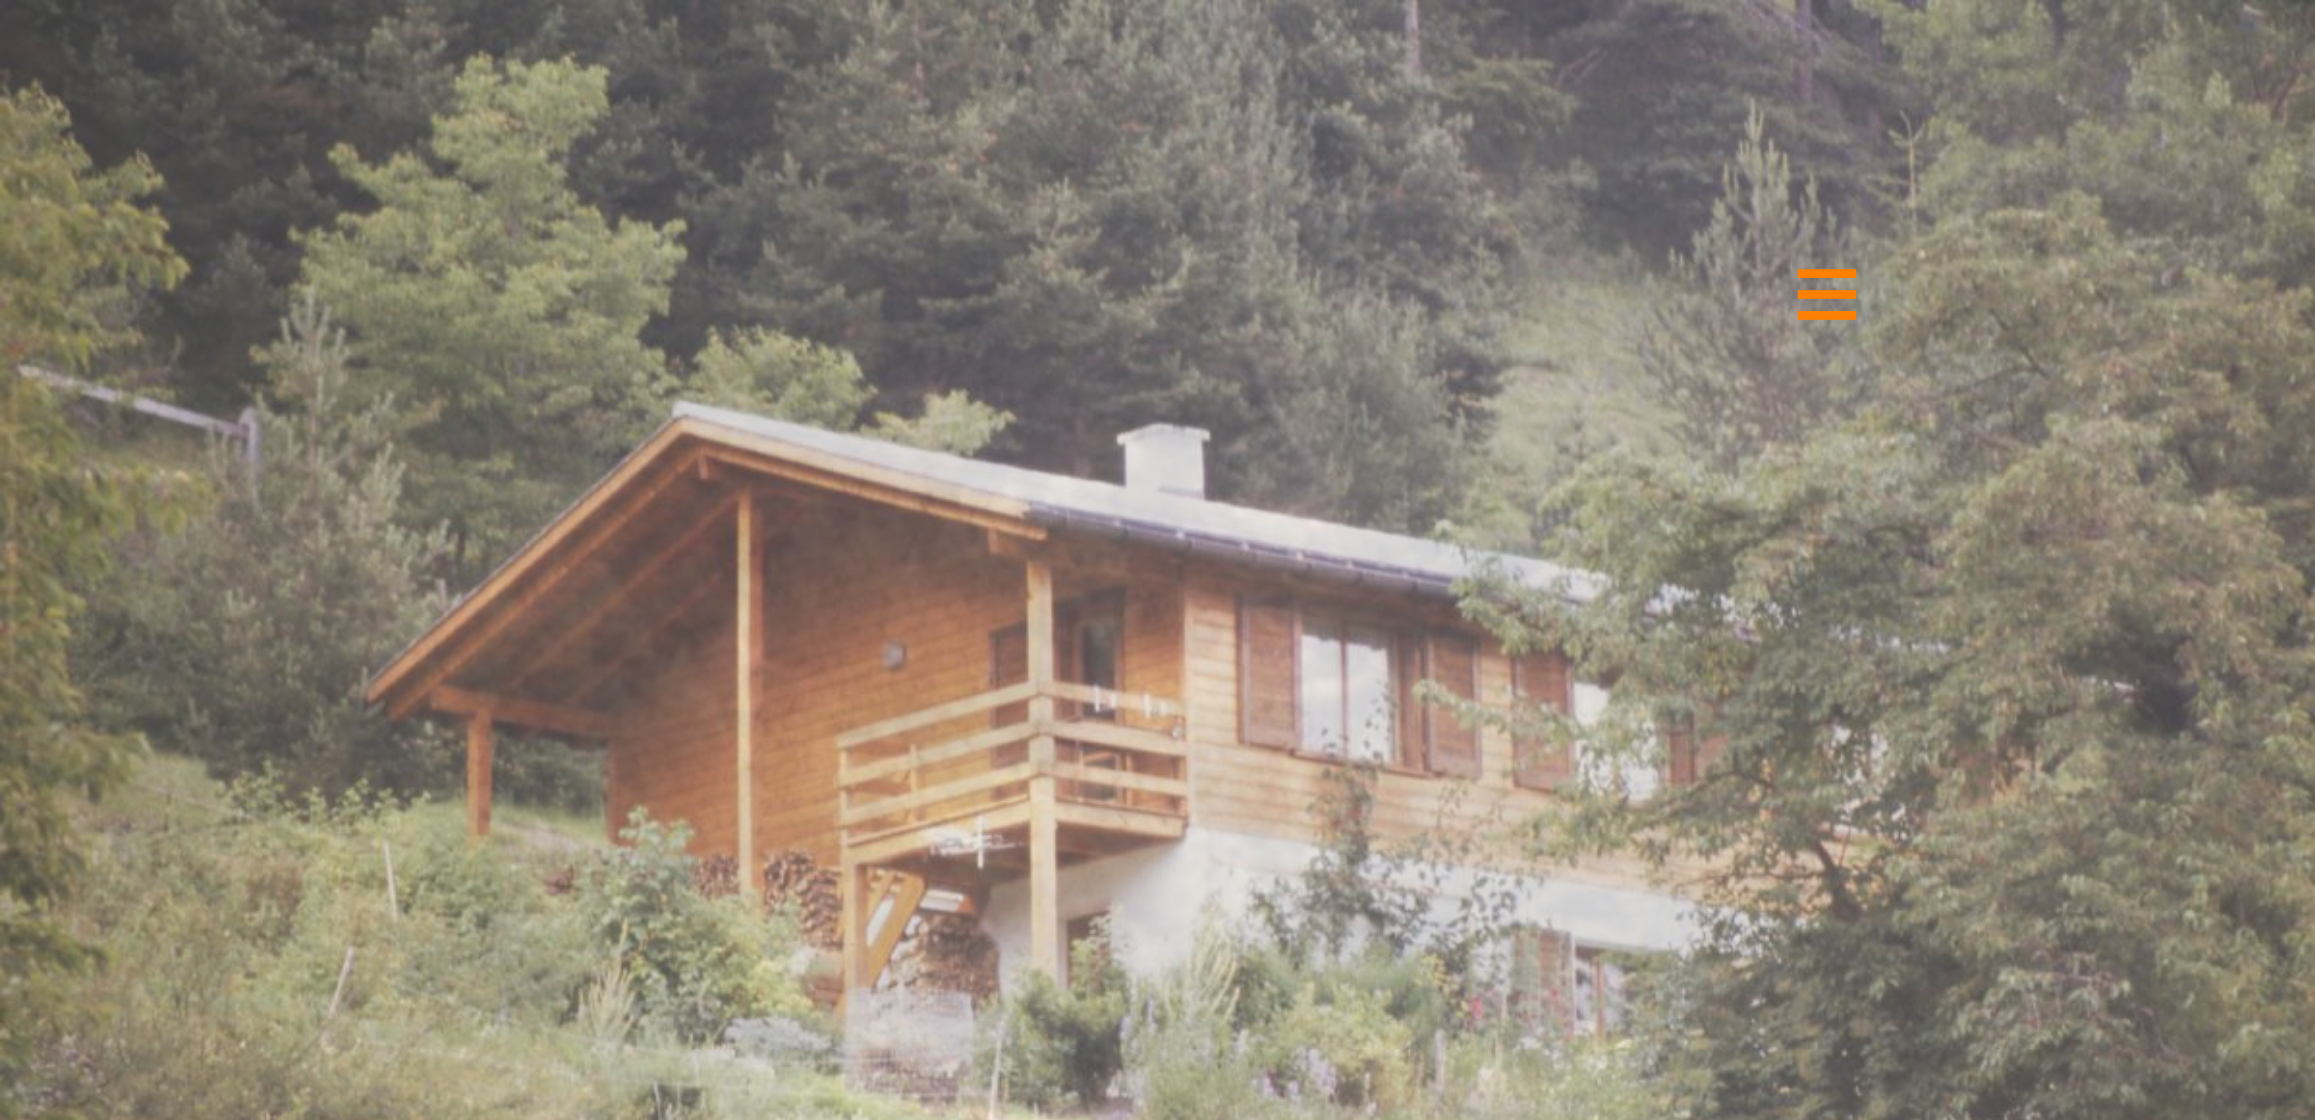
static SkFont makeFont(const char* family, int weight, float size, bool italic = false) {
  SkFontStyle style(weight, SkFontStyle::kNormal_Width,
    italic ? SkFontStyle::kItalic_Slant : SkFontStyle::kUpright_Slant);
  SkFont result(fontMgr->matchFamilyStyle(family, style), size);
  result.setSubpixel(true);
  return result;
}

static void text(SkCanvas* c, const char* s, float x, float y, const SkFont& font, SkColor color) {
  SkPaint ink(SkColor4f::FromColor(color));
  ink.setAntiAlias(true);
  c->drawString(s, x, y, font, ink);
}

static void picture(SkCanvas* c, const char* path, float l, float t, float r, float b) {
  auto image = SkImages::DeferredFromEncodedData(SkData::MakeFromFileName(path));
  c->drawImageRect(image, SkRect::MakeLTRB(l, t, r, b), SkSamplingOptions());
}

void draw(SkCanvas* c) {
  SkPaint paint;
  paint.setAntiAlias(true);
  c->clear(0xffffffff);
  picture(c, "img_01.png", 0, 0, 2315, 1120);
  picture(c, "img_02.png", 0, 0, 2315, 1120);
  SkFont face1 = makeFont("Liberation Sans", 400, 120);
  text(c, "≡", 1792, 334, face1, 0xffff8000);
}
